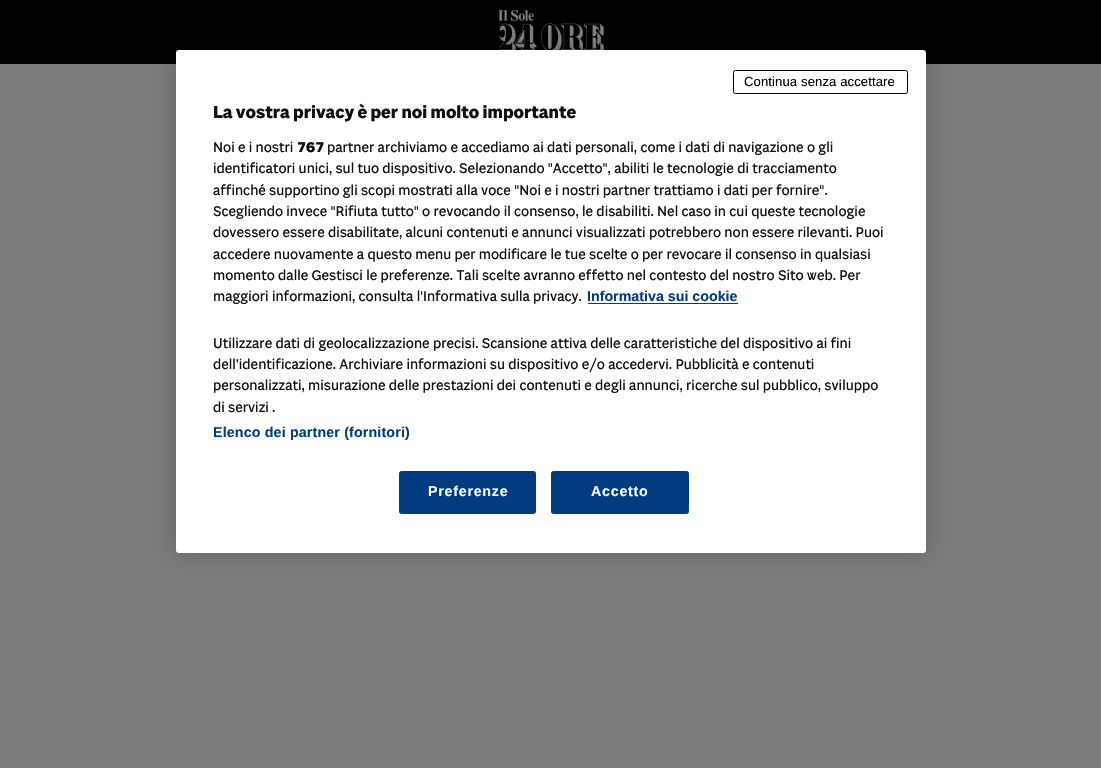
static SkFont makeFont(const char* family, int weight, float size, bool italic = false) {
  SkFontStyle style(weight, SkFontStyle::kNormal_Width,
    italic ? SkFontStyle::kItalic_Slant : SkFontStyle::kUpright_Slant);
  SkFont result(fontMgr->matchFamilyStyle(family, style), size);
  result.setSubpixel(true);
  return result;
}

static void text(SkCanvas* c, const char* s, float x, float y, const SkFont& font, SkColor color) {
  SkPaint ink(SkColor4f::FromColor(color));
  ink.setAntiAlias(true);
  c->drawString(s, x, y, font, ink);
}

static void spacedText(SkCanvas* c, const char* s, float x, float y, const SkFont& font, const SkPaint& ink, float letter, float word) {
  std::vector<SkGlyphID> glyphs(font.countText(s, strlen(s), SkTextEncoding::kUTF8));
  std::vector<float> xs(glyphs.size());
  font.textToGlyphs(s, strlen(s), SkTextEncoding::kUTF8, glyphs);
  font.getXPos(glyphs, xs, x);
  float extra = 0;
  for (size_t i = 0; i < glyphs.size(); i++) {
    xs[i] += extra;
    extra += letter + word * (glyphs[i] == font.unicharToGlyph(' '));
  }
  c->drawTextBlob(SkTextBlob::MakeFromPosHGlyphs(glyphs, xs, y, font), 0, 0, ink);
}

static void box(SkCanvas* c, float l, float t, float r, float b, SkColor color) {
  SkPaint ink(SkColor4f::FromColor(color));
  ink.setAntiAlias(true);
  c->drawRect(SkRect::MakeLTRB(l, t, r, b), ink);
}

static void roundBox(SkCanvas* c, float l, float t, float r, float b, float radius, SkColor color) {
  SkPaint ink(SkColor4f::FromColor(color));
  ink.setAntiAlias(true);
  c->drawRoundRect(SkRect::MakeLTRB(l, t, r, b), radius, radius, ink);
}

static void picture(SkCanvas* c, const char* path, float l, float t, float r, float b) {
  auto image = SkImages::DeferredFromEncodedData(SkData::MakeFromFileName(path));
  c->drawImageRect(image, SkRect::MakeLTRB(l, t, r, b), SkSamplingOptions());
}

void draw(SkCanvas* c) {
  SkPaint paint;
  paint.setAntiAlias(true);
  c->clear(0xff7b7b7b);
  box(c, 0, 0, 1101, 64, 0xff000000);
  picture(c, "img_01.png", 499, 10, 604, 50);
  paint.setColor(0x33000000);
  paint.setMaskFilter(SkMaskFilter::MakeBlur(kNormal_SkBlurStyle, 11));
  c->drawRoundRect(SkRect::MakeLTRB(176, 50, 926, 553), 3, 3, paint);
  paint.setMaskFilter(nullptr);
  roundBox(c, 176, 50, 926, 553, 3, 0xffffffff);
  paint.setStyle(SkPaint::kStroke_Style);
  paint.setStrokeWidth(1);
  paint.setColor(0xff000000);
  c->drawRoundRect(SkRect::MakeLTRB(733.5f, 70.5f, 907.5f, 93.5f), 2, 2, paint);
  SkFont face1 = makeFont("Liberation Sans", 400, 13.1f);
  paint.setStyle(SkPaint::kFill_Style);
  spacedText(c, "Continua senza accettare", 744, 86, face1, paint, 0.1f, 0);
  SkFont face2 = makeFont("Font", 700, 17.5f);
  text(c, "La vostra privacy è per noi molto importante", 213, 118, face2, 0xff0f0f0f);
  SkFont face3 = makeFont("Font", 400, 14.25f);
  text(c, "Noi e i nostri", 213, 152, face3, 0xff0f0f0f);
  SkFont face4 = makeFont("Font", 700, 14.25f);
  text(c, "767", 297, 152, face4, 0xff0f0f0f);
  text(c, "partner archiviamo e accediamo ai dati personali, come i dati di navigazione o gli", 327, 152, face3, 0xff0f0f0f);
  text(c, "identificatori unici, sul tuo dispositivo. Selezionando \"Accetto\", abiliti le tecnologie di tracciamento", 213, 173, face3, 0xff0f0f0f);
  text(c, "affinché supportino gli scopi mostrati alla voce \"Noi e i nostri partner trattiamo i dati per fornire\".", 213, 195, face3, 0xff0f0f0f);
  text(c, "Scegliendo invece \"Rifiuta tutto\" o revocando il consenso, le disabiliti. Nel caso in cui queste tecnologie", 213, 216, face3, 0xff0f0f0f);
  text(c, "dovessero essere disabilitate, alcuni contenuti e annunci visualizzati potrebbero non essere rilevanti. Puoi", 213, 237, face3, 0xff0f0f0f);
  text(c, "accedere nuovamente a questo menu per modificare le tue scelte o per revocare il consenso in qualsiasi", 213, 259, face3, 0xff0f0f0f);
  text(c, "momento dalle Gestisci le preferenze. Tali scelte avranno effetto nel contesto del nostro Sito web. Per", 213, 280, face3, 0xff0f0f0f);
  text(c, "maggiori informazioni, consulta l'Informativa sulla privacy.", 213, 301, face3, 0xff0f0f0f);
  SkFont face5 = makeFont("Liberation Sans", 700, 14.25f);
  text(c, "Informativa sui cookie", 587, 301, face5, 0xff003c7f);
  box(c, 588, 303, 738, 304, 0xff003c7f);
  text(c, "Utilizzare dati di geolocalizzazione precisi. Scansione attiva delle caratteristiche del dispositivo ai fini", 213, 348, face3, 0xff0f0f0f);
  text(c, "dell’identificazione. Archiviare informazioni su dispositivo e/o accedervi. Pubblicità e contenuti", 213, 369, face3, 0xff0f0f0f);
  text(c, "personalizzati, misurazione delle prestazioni dei contenuti e degli annunci, ricerche sul pubblico, sviluppo", 213, 390, face3, 0xff0f0f0f);
  text(c, "di servizi .", 213, 412, face3, 0xff0f0f0f);
  paint.setColor(0xff003c7f);
  spacedText(c, "Elenco dei partner (fornitori)", 213, 437, face5, paint, 0.15f, 0);
  c->drawRoundRect(SkRect::MakeLTRB(399.5f, 471.5f, 535.5f, 513.5f), 2, 2, paint);
  paint.setStyle(SkPaint::kStroke_Style);
  c->drawRoundRect(SkRect::MakeLTRB(399.5f, 471.5f, 535.5f, 513.5f), 2, 2, paint);
  paint.setStyle(SkPaint::kFill_Style);
  paint.setColor(0xffffffff);
  spacedText(c, "Preferenze", 428, 496, face5, paint, 0.75f, 0);
  paint.setColor(0xff003c7f);
  c->drawRoundRect(SkRect::MakeLTRB(551.5f, 471.5f, 688.5f, 513.5f), 2, 2, paint);
  paint.setStyle(SkPaint::kStroke_Style);
  c->drawRoundRect(SkRect::MakeLTRB(551.5f, 471.5f, 688.5f, 513.5f), 2, 2, paint);
  paint.setStyle(SkPaint::kFill_Style);
  paint.setColor(0xffffffff);
  spacedText(c, "Accetto", 591, 496, face5, paint, 0.75f, 0);
}
